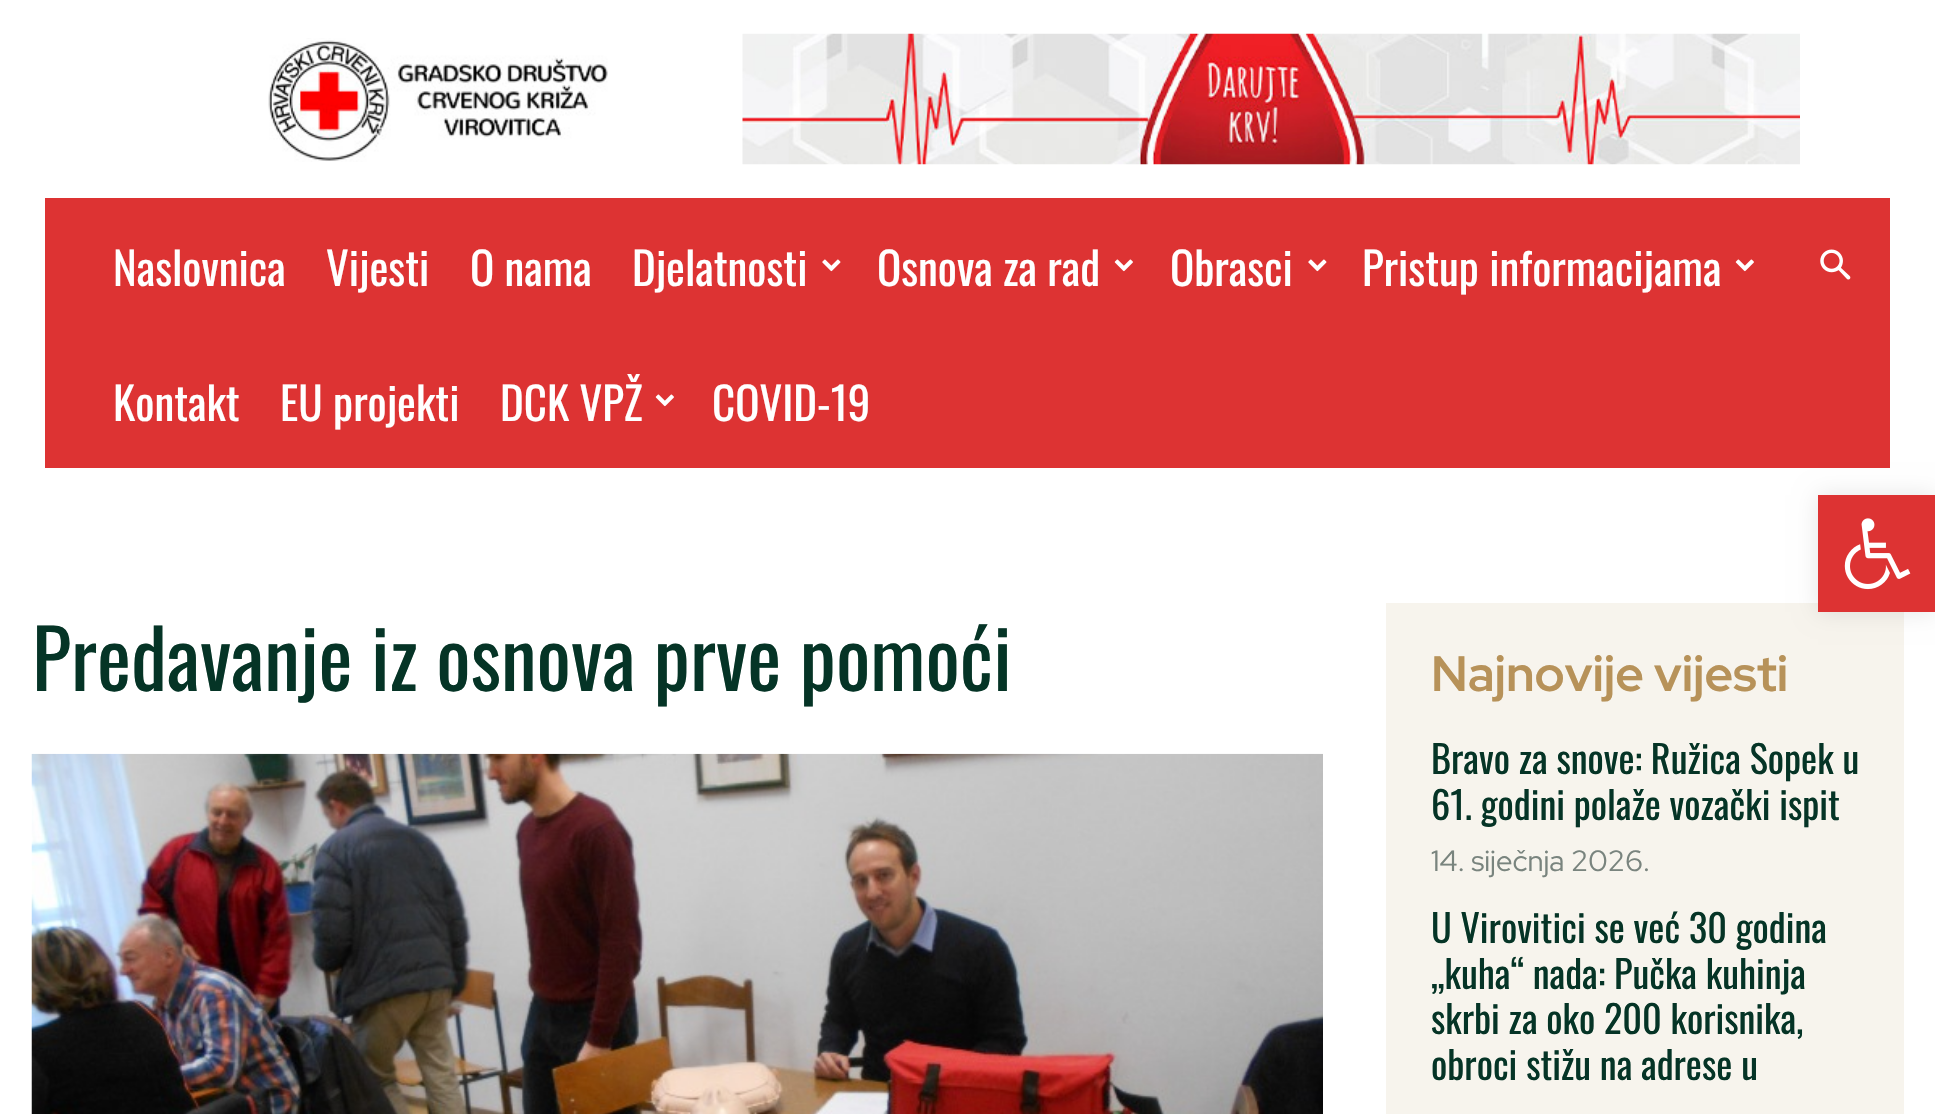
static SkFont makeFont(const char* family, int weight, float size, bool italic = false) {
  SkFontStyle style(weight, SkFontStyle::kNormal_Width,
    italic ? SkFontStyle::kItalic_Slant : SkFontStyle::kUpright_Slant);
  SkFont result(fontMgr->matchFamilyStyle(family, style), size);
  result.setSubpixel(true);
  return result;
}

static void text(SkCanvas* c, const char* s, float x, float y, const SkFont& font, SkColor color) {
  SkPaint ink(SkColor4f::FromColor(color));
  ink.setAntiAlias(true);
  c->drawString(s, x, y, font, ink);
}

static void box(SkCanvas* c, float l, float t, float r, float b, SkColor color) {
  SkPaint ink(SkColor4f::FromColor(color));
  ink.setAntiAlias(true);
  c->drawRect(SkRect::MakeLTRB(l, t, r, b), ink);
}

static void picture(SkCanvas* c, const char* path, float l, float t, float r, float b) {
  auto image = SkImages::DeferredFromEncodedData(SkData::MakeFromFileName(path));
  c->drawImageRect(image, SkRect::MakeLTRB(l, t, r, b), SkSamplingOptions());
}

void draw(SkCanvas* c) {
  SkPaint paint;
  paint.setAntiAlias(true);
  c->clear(0xffffffff);
  picture(c, "img_01.png", 268, 38, 608, 162);
  picture(c, "img_02.png", 742, 33, 1800, 165);
  box(c, 45, 198, 1890, 468, 0xffdd3333);
  SkFont face1 = makeFont("Oswald", 400, 45);
  text(c, "Naslovnica", 113, 286, face1, 0xffffffff);
  text(c, "Vijesti", 326, 286, face1, 0xffffffff);
  text(c, "O nama", 470, 286, face1, 0xffffffff);
  text(c, "Djelatnosti", 632, 286, face1, 0xffffffff);
  picture(c, "img_03.png", 822, 259, 841, 272);
  text(c, "Osnova za rad", 877, 286, face1, 0xffffffff);
  picture(c, "img_04.png", 1114, 259, 1133, 272);
  text(c, "Obrasci", 1170, 286, face1, 0xffffffff);
  picture(c, "img_03.png", 1308, 259, 1327, 272);
  text(c, "Pristup informacijama", 1362, 286, face1, 0xffffffff);
  picture(c, "img_04.png", 1735, 259, 1754, 272);
  text(c, "Kontakt", 113, 421, face1, 0xffffffff);
  text(c, "EU projekti", 280, 421, face1, 0xffffffff);
  text(c, "DCK VPŽ", 500, 421, face1, 0xffffffff);
  picture(c, "img_04.png", 655, 394, 674, 407);
  text(c, "COVID-19", 712, 421, face1, 0xffffffff);
  picture(c, "img_05.png", 1820, 249, 1851, 280);
  SkFont face2 = makeFont("Oswald", 400, 81);
  text(c, "Predavanje iz osnova prve pomoći", 32, 691, face2, 0xff053426);
  picture(c, "img_06.png", 31, 753, 1323, 1114);
  box(c, 1386, 603, 1904, 1114, 0xfff7f4ed);
  SkFont face3 = makeFont("Red Hat Display", 700, 49.5f);
  text(c, "Najnovije vijesti", 1431, 691, face3, 0xffb79259);
  SkFont face4 = makeFont("Oswald", 400, 38.25f);
  text(c, "Bravo za snove: Ružica Sopek u", 1431, 774, face4, 0xff053426);
  text(c, "61. godini polaže vozački ispit", 1431, 820, face4, 0xff053426);
  SkFont face5 = makeFont("Red Hat Display", 400, 29.25f);
  text(c, "14. siječnja 2026.", 1431, 871, face5, 0xff79847e);
  text(c, "U Virovitici se već 30 godina", 1431, 943, face4, 0xff053426);
  text(c, "„kuha“ nada: Pučka kuhinja", 1431, 989, face4, 0xff053426);
  text(c, "skrbi za oko 200 korisnika,", 1431, 1034, face4, 0xff053426);
  text(c, "obroci stižu na adrese u", 1431, 1080, face4, 0xff053426);
  paint.setColor(0x1a000000);
  paint.setMaskFilter(SkMaskFilter::MakeBlur(kNormal_SkBlurStyle, 11));
  c->drawRect(SkRect::MakeLTRB(1818, 495, 1935, 612), paint);
  paint.setMaskFilter(nullptr);
  box(c, 1818, 495, 1935, 612, 0xffdd3333);
  picture(c, "img_07.png", 1844, 518, 1911, 590);
}
